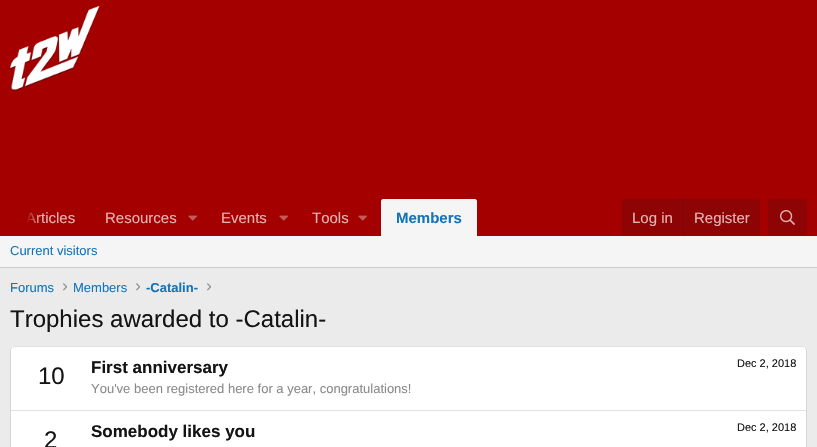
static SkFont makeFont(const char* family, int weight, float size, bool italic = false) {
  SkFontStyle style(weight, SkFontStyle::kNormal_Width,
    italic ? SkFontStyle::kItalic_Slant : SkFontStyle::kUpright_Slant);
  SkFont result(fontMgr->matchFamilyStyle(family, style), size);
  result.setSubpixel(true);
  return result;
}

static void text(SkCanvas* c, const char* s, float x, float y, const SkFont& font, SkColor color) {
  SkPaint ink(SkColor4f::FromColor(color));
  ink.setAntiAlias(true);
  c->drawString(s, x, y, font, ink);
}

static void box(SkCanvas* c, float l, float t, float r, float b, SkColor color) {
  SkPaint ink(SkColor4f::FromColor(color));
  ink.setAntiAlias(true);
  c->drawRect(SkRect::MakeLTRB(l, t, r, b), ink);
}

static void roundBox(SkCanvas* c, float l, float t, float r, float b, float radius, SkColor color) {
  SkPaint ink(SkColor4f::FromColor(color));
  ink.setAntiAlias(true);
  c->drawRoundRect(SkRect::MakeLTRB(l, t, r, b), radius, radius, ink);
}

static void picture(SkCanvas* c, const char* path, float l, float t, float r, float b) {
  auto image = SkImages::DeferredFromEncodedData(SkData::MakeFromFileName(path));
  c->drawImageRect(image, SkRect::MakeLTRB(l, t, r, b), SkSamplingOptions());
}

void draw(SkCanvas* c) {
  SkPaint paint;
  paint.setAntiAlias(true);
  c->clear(0xffebebeb);
  box(c, 0, 0, 817, 192, 0xffa40000);
  picture(c, "img_01.png", 10, 6, 100, 91);
  box(c, 26, 192, 817, 236, 0xffa40000);
  SkFont face1 = makeFont("Liberation Sans", 400, 15);
  text(c, "Articles", 26, 223, face1, 0xffe4b3b3);
  {
    const SkColor colors[] = {0xffa40000, 0x00a40000};
    const float stops[] = {0.66f, 1};
    const SkPoint ends[] = {{0, 214}, {40, 214}};
    paint.setShader(SkGradientShader::MakeLinear(ends, colors, stops, 2, SkTileMode::kClamp));
    paint.setAlpha(255);
  }
  c->drawRect(SkRect::MakeLTRB(0, 192, 40, 236), paint);
  text(c, "Resources", 105, 223, face1, 0xffe4b3b3);
  picture(c, "img_02.png", 188, 215, 197, 221);
  text(c, "Events", 221, 223, face1, 0xffe4b3b3);
  picture(c, "img_02.png", 279, 215, 288, 221);
  text(c, "Tools", 312, 223, face1, 0xffe4b3b3);
  picture(c, "img_02.png", 358, 215, 367, 221);
  paint.setShader(nullptr);
  paint.setColor(0xfff5f5f5);
  c->drawPath(SkPathBuilder().moveTo(383, 199).lineTo(475, 199).cubicTo(476, 199, 477, 200, 477, 201).lineTo(477, 236).lineTo(381, 236).lineTo(381, 201).cubicTo(381, 200, 382, 199, 383, 199).close().detach(), paint);
  SkFont face2 = makeFont("Liberation Sans", 700, 15);
  text(c, "Members", 396, 223, face2, 0xff1474b8);
  paint.setColor(0xff8e0303);
  c->drawPath(SkPathBuilder().moveTo(626, 199).lineTo(756, 199).cubicTo(758, 199, 760, 201, 760, 203).lineTo(760, 236).lineTo(622, 236).lineTo(622, 203).cubicTo(622, 201, 624, 199, 626, 199).close().detach(), paint);
  text(c, "Log in", 632, 223, face1, 0xffe4b3b3);
  box(c, 683, 199, 684, 236, 0xff7c0606);
  text(c, "Register", 694, 223, face1, 0xffe4b3b3);
  c->drawPath(SkPathBuilder().moveTo(772, 199).lineTo(803, 199).cubicTo(805, 199, 807, 201, 807, 203).lineTo(807, 236).lineTo(768, 236).lineTo(768, 203).cubicTo(768, 201, 770, 199, 772, 199).close().detach(), paint);
  picture(c, "img_03.png", 780, 210, 795, 225);
  box(c, 0, 236, 817, 267, 0xfff5f5f5);
  box(c, 0, 267, 817, 268, 0xffcccccc);
  SkFont face3 = makeFont("Liberation Sans", 400, 13);
  text(c, "Current visitors", 10, 255, face3, 0xff1474b8);
  text(c, "Forums", 10, 292, face3, 0xff1474b8);
  picture(c, "img_04.png", 63, 283, 67, 291);
  text(c, "Members", 73, 292, face3, 0xff1474b8);
  picture(c, "img_04.png", 136, 283, 140, 291);
  SkFont face4 = makeFont("Liberation Sans", 700, 13);
  text(c, "-Catalin-", 146, 292, face4, 0xff1474b8);
  picture(c, "img_04.png", 207, 283, 211, 291);
  SkFont face5 = makeFont("Liberation Sans", 400, 24);
  text(c, "Trophies awarded to -Catalin-", 10, 327, face5, 0xff141414);
  roundBox(c, 10, 346, 807, 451, 4, 0xffffffff);
  paint.setStyle(SkPaint::kStroke_Style);
  paint.setStrokeWidth(1);
  paint.setColor(0xffe0e0e0);
  c->drawPath(SkPathBuilder().moveTo(11.5f, 347.5f).lineTo(14, 346.5f).lineTo(803, 346.5f).lineTo(805.5f, 347.5f).detach(), paint);
  paint.setColor(0xffd6d6d6);
  c->drawPath(SkPathBuilder().moveTo(805.5f, 347.5f).lineTo(806.5f, 350).lineTo(806.5f, 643).lineTo(805.5f, 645.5f).detach(), paint);
  c->drawPath(SkPathBuilder().moveTo(11.5f, 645.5f).lineTo(10.5f, 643).lineTo(10.5f, 350).lineTo(11.5f, 347.5f).detach(), paint);
  text(c, "10", 38, 384, face5, 0xff141414);
  SkFont face6 = makeFont("Liberation Sans", 700, 17);
  text(c, "First anniversary", 91, 373, face6, 0xff141414);
  SkFont face7 = makeFont("Liberation Sans", 400, 11);
  text(c, "Dec 2, 2018", 737, 367, face7, 0xff141414);
  text(c, "You've been registered here for a year, congratulations!", 91, 393, face3, 0xff8a8a8a);
  box(c, 11, 410, 806, 411, 0xffe0e0e0);
  text(c, "2", 44, 448, face5, 0xff141414);
  text(c, "Somebody likes you", 91, 437, face6, 0xff141414);
  text(c, "Dec 2, 2018", 737, 431, face7, 0xff141414);
}
